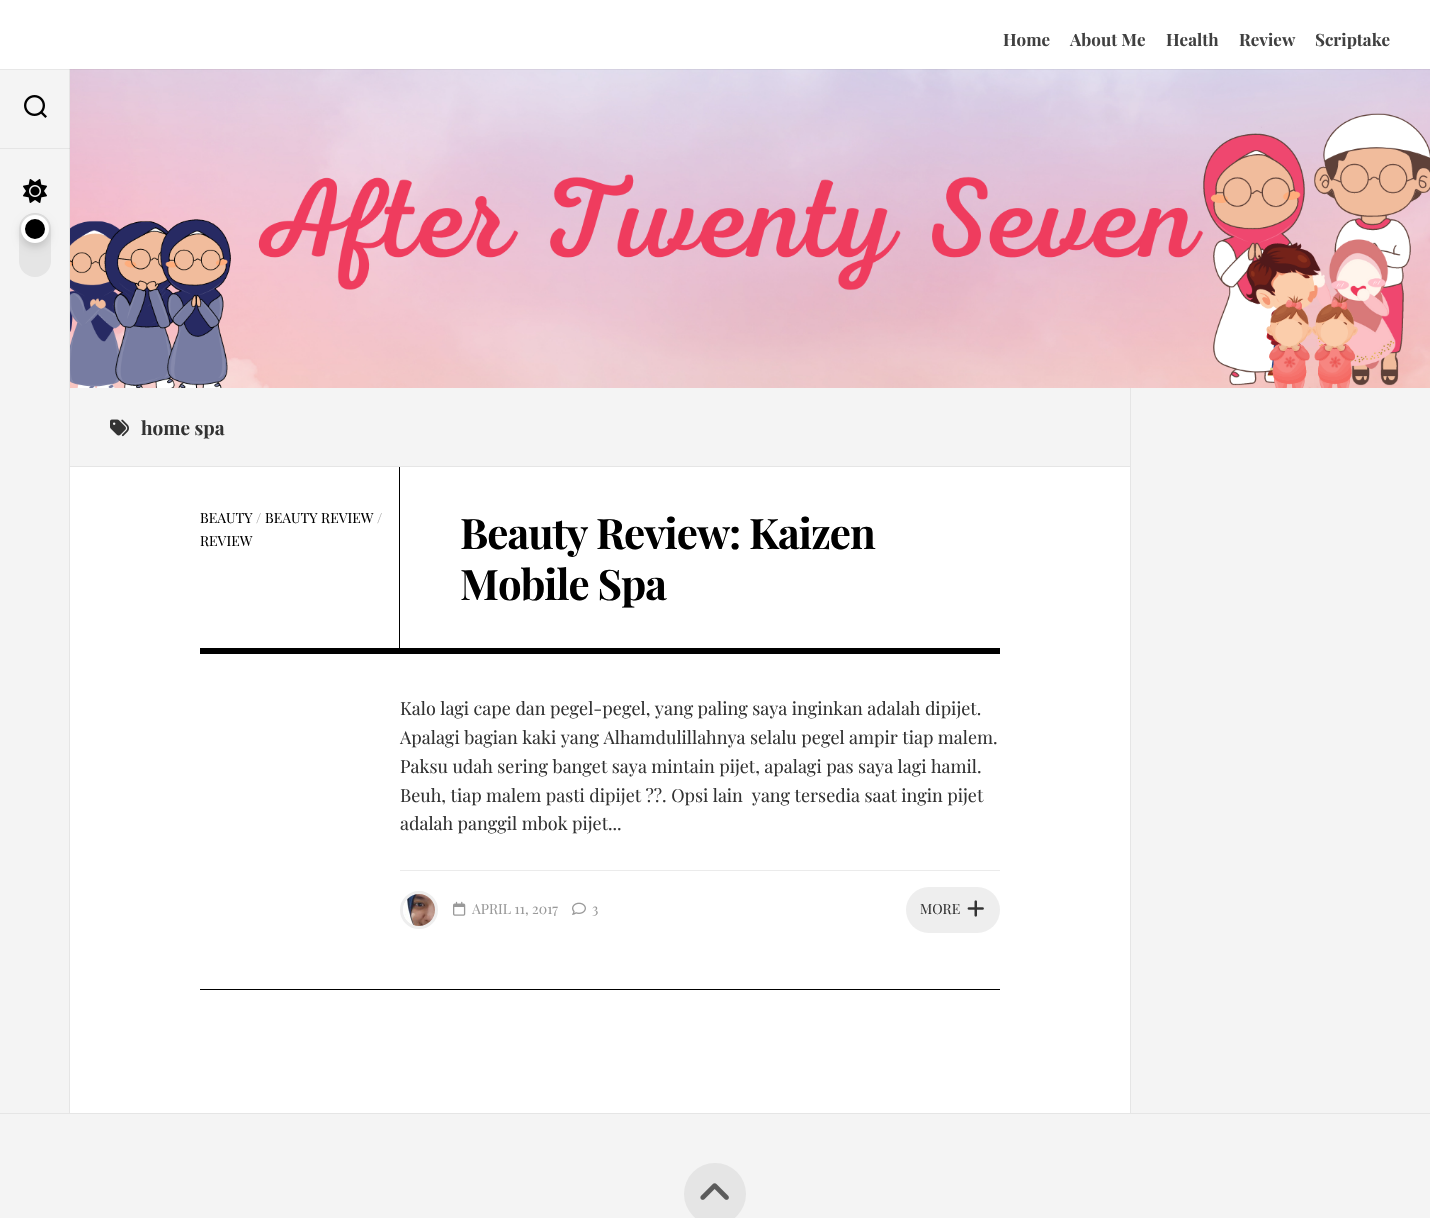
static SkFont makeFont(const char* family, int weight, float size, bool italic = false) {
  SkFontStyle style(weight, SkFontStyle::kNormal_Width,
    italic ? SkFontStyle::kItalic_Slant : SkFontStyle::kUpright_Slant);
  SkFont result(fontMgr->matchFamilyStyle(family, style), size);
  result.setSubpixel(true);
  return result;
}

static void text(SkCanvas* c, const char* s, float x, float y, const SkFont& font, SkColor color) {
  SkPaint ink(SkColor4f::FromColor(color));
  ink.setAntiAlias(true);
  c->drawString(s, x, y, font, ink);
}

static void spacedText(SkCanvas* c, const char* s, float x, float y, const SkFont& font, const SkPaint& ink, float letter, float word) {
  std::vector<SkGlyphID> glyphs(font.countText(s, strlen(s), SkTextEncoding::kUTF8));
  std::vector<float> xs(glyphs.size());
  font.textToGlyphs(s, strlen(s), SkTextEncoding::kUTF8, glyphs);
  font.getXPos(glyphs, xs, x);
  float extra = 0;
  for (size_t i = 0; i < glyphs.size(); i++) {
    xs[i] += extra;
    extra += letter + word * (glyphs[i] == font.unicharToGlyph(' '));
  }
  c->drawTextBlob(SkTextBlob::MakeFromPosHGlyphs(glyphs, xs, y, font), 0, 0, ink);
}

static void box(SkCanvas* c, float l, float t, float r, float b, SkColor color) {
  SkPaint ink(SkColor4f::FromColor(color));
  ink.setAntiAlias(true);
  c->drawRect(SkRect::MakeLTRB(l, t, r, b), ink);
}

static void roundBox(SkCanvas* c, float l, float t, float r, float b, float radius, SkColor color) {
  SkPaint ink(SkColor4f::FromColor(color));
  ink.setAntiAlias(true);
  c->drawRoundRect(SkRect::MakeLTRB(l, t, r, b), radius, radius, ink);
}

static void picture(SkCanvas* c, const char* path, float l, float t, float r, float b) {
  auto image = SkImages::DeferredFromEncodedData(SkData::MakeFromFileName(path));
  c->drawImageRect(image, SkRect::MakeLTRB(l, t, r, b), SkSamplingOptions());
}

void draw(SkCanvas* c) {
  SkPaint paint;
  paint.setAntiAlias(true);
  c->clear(0xffffffff);
  box(c, 0, 69, 69, 1113, 0xfff4f4f4);
  box(c, 0, 148, 70, 149, 0xffe5e5e5);
  box(c, 69, 69, 70, 1113, 0xffe5e5e5);
  picture(c, "img_03.png", 70, 69, 1430, 388);
  box(c, 0, 69, 1430, 70, 0x0d000000);
  SkFont face1 = makeFont("Playfair Display", 700, 17);
  text(c, "Home", 1003, 46, face1, 0xff404040);
  text(c, "About Me", 1070, 46, face1, 0xff404040);
  text(c, "Health", 1166, 46, face1, 0xff404040);
  text(c, "Review", 1239, 46, face1, 0xff404040);
  text(c, "Scriptake", 1315, 46, face1, 0xff404040);
  box(c, 69, 148, 70, 149, 0xffd7d7d7);
  picture(c, "img_01.png", 24, 95, 47, 118);
  picture(c, "img_02.png", 23, 179, 47, 203);
  roundBox(c, 19, 213, 51, 277, 16, 0xffe5e5e5);
  paint.setColor(0x0d000000);
  c->drawPath(SkPathBuilder().moveTo(35, 214).cubicTo(44, 214, 51, 221, 51, 230).cubicTo(51, 207.5f, 19, 207.5f, 19, 230).cubicTo(19, 221, 26, 214, 35, 214).close().detach(), paint);
  paint.setColor(0x29000000);
  paint.setMaskFilter(SkMaskFilter::MakeBlur(kNormal_SkBlurStyle, 4));
  c->drawRoundRect(SkRect::MakeLTRB(21, 219, 49, 247), 14, 14, paint);
  paint.setMaskFilter(nullptr);
  paint.setColor(0xff000000);
  c->drawCircle(35, 229, 12, paint);
  paint.setStyle(SkPaint::kStroke_Style);
  paint.setStrokeWidth(4);
  paint.setColor(0xffffffff);
  c->drawCircle(35, 229, 12, paint);
  box(c, 70, 388, 1130, 466, 0xfff4f4f4);
  box(c, 70, 466, 1130, 467, 0xffe5e5e5);
  picture(c, "img_04.png", 110, 419, 129, 437);
  SkFont face2 = makeFont("Playfair Display", 700, 19);
  text(c, "home spa", 141, 435, face2, 0xff333333);
  box(c, 200, 648, 1000, 654, 0xff000000);
  box(c, 399, 467, 400, 648, 0xff000000);
  SkFont face3 = makeFont("Playfair Display", 400, 14);
  text(c, "BEAUTY", 200, 523, face3, 0xff000000);
  text(c, "/", 256, 523, face3, 0xff999999);
  text(c, "BEAUTY REVIEW", 265, 523, face3, 0xff000000);
  text(c, "/", 377, 523, face3, 0xff999999);
  text(c, "REVIEW", 200, 546, face3, 0xff000000);
  SkFont face4 = makeFont("Playfair Display", 700, 42);
  paint.setStyle(SkPaint::kFill_Style);
  paint.setColor(0xff000000);
  spacedText(c, "Beauty Review: Kaizen", 460, 549, face4, paint, -1, 0);
  spacedText(c, "Mobile Spa", 460, 600, face4, paint, -1, 0);
  box(c, 200, 989, 1000, 990, 0xff000000);
  SkFont face5 = makeFont("Playfair Display", 400, 18);
  text(c, "Kalo lagi cape dan pegel-pegel, yang paling saya inginkan adalah dipijet.", 400, 715, face5, 0xff333333);
  text(c, "Apalagi bagian kaki yang Alhamdulillahnya selalu pegel ampir tiap malem.", 400, 744, face5, 0xff333333);
  text(c, "Paksu udah sering banget saya mintain pijet, apalagi pas saya lagi hamil.", 400, 773, face5, 0xff333333);
  text(c, "Beuh, tiap malem pasti dipijet ?\077. Opsi lain  yang tersedia saat ingin pijet", 400, 802, face5, 0xff333333);
  text(c, "adalah panggil mbok pijet...", 400, 830, face5, 0xff333333);
  box(c, 400, 870, 1000, 871, 0xffebebeb);
  paint.setStyle(SkPaint::kStroke_Style);
  paint.setStrokeWidth(3);
  paint.setColor(0xffeeeeee);
  c->drawCircle(419, 910, 17.5f, paint);
  picture(c, "img_05.png", 403, 894, 435, 926);
  picture(c, "img_06.png", 453, 901, 466, 916);
  text(c, "APRIL 11, 2017", 472, 914, face3, 0xff999999);
  picture(c, "img_07.png", 572, 902, 586, 915);
  text(c, "3", 592, 914, face3, 0xff999999);
  roundBox(c, 906, 887, 1000, 933, 23, 0xffeeeeee);
  text(c, "MORE", 920, 914, face3, 0xff333333);
  picture(c, "img_08.png", 967, 900, 984, 917);
  box(c, 1131, 388, 1430, 1113, 0xfff4f4f4);
  box(c, 1130, 388, 1131, 1113, 0xffe5e5e5);
  box(c, 0, 1114, 1430, 1218, 0xfff4f4f4);
  box(c, 0, 1113, 1430, 1114, 0xffe5e5e5);
  paint.setStyle(SkPaint::kFill_Style);
  paint.setColor(0xffe5e5e5);
  c->drawCircle(715, 1194, 31, paint);
  picture(c, "img_09.png", 700, 1183, 729, 1200);
}
